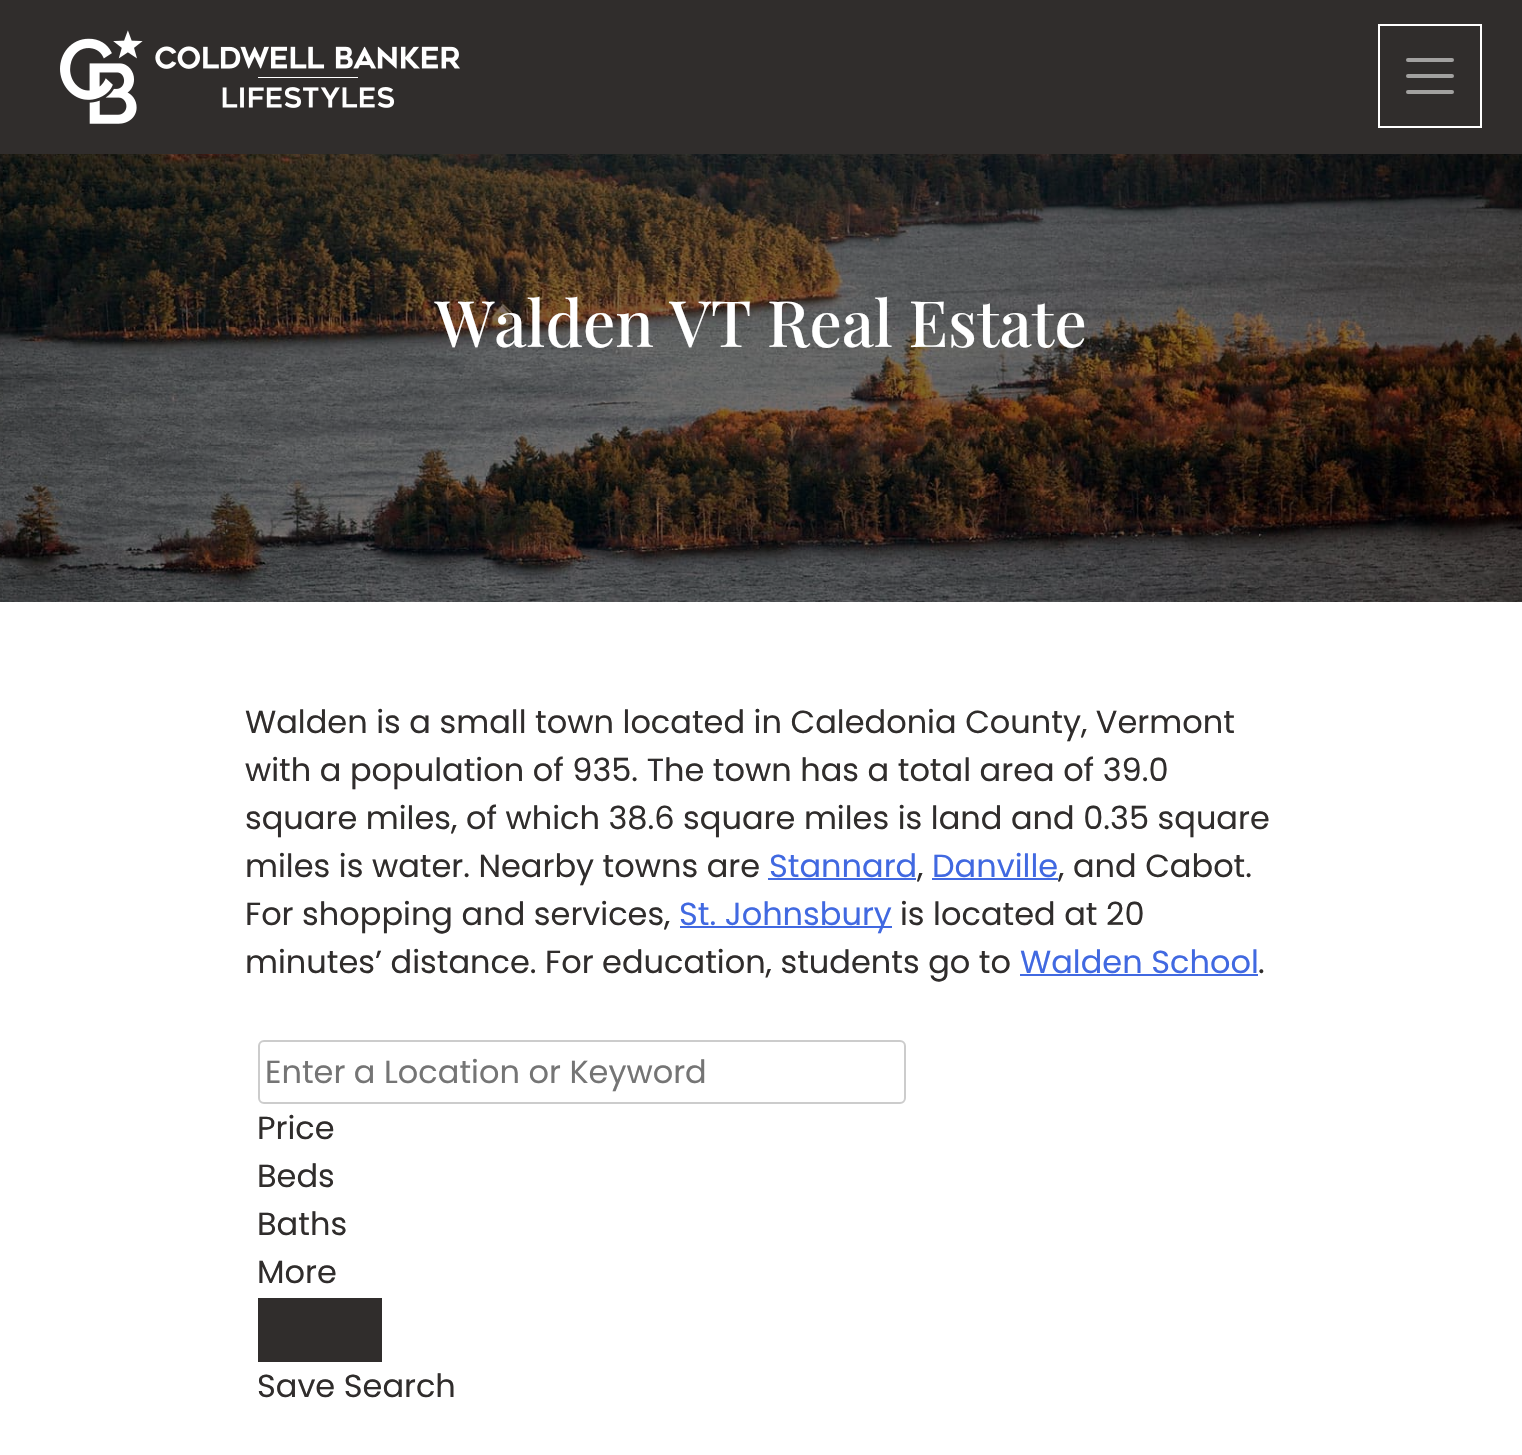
static SkFont makeFont(const char* family, int weight, float size, bool italic = false) {
  SkFontStyle style(weight, SkFontStyle::kNormal_Width,
    italic ? SkFontStyle::kItalic_Slant : SkFontStyle::kUpright_Slant);
  SkFont result(fontMgr->matchFamilyStyle(family, style), size);
  result.setSubpixel(true);
  return result;
}

static void text(SkCanvas* c, const char* s, float x, float y, const SkFont& font, SkColor color) {
  SkPaint ink(SkColor4f::FromColor(color));
  ink.setAntiAlias(true);
  c->drawString(s, x, y, font, ink);
}

static void box(SkCanvas* c, float l, float t, float r, float b, SkColor color) {
  SkPaint ink(SkColor4f::FromColor(color));
  ink.setAntiAlias(true);
  c->drawRect(SkRect::MakeLTRB(l, t, r, b), ink);
}

static void picture(SkCanvas* c, const char* path, float l, float t, float r, float b) {
  auto image = SkImages::DeferredFromEncodedData(SkData::MakeFromFileName(path));
  c->drawImageRect(image, SkRect::MakeLTRB(l, t, r, b), SkSamplingOptions());
}

void draw(SkCanvas* c) {
  SkPaint paint;
  paint.setAntiAlias(true);
  c->clear(0xffffffff);
  box(c, 0, 0, 1522, 154, 0xff302d2c);
  picture(c, "img_01.png", 60, 30, 460, 124);
  paint.setStyle(SkPaint::kStroke_Style);
  paint.setStrokeWidth(2);
  paint.setColor(0xffffffff);
  c->drawRect(SkRect::MakeLTRB(1379, 25, 1481, 127), paint);
  paint.setStrokeWidth(4);
  paint.setStrokeCap(SkPaint::kRound_Cap);
  paint.setColor(0xffa2a1a0);
  c->drawPath(SkPathBuilder().moveTo(1408, 60).lineTo(1452, 60).moveTo(1408, 76).lineTo(1452, 76).moveTo(1408, 92).lineTo(1452, 92).detach(), paint);
  picture(c, "img_02.png", 0, 154, 1522, 602);
  SkFont face1 = makeFont("Playfair Display", 500, 64);
  text(c, "Walden VT Real Estate", 435, 347, face1, 0xffffffff);
  SkFont face2 = makeFont("Poppins", 400, 32);
  text(c, "Walden is a small town located in Caledonia County, Vermont", 245, 733, face2, 0xff302d2c);
  text(c, "with a population of 935. The town has a total area of 39.0", 245, 781, face2, 0xff302d2c);
  text(c, "square miles, of which 38.6 square miles is land and 0.35 square", 245, 829, face2, 0xff302d2c);
  text(c, "miles is water. Nearby towns are", 245, 877, face2, 0xff302d2c);
  text(c, "Stannard", 769, 877, face2, 0xff4169e1);
  box(c, 768, 878, 916, 880, 0xff4169e1);
  text(c, ",", 917, 877, face2, 0xff302d2c);
  text(c, "Danville", 932, 877, face2, 0xff4169e1);
  box(c, 932, 878, 1058, 880, 0xff4169e1);
  text(c, ", and Cabot.", 1058, 877, face2, 0xff302d2c);
  text(c, "For shopping and services,", 245, 925, face2, 0xff302d2c);
  box(c, 680, 926, 892, 928, 0xff4169e1);
  text(c, "St. Johnsbury", 679, 925, face2, 0xff4169e1);
  text(c, "is located at 20", 900, 925, face2, 0xff302d2c);
  text(c, "minutes’ distance. For education, students go to", 245, 973, face2, 0xff302d2c);
  text(c, "Walden School", 1020, 973, face2, 0xff4169e1);
  box(c, 1020, 974, 1258, 976, 0xff4169e1);
  text(c, ".", 1258, 973, face2, 0xff302d2c);
  paint.setStrokeWidth(2);
  paint.setStrokeCap(SkPaint::kButt_Cap);
  paint.setColor(0xffcccccc);
  c->drawRoundRect(SkRect::MakeLTRB(259, 1041, 905, 1103), 5, 5, paint);
  text(c, "Enter a Location or Keyword", 265, 1083, face2, 0xff757575);
  text(c, "Price", 257, 1139, face2, 0xff302d2c);
  text(c, "Beds", 257, 1187, face2, 0xff302d2c);
  text(c, "Baths", 257, 1235, face2, 0xff302d2c);
  text(c, "More", 257, 1283, face2, 0xff302d2c);
  box(c, 258, 1298, 382, 1362, 0xff302d2c);
  text(c, "Save Search", 257, 1397, face2, 0xff302d2c);
}
